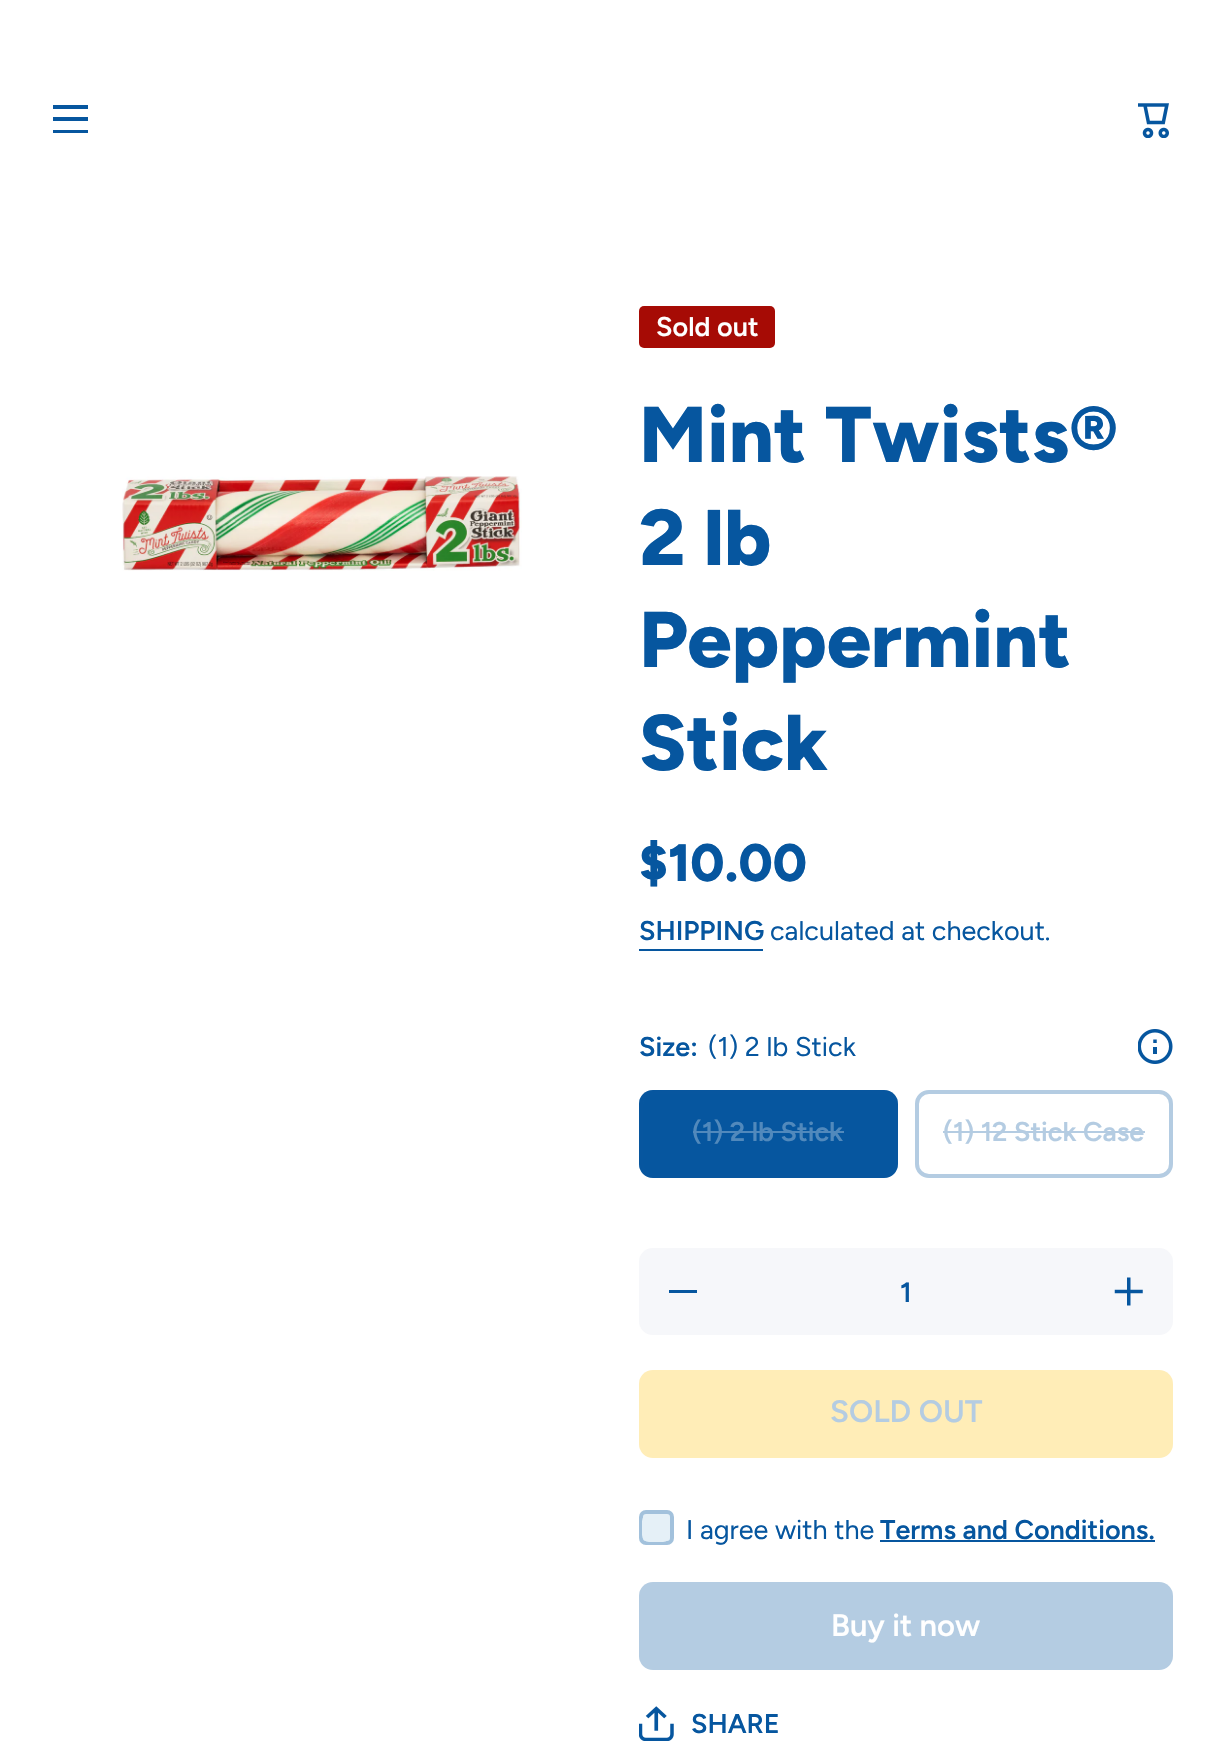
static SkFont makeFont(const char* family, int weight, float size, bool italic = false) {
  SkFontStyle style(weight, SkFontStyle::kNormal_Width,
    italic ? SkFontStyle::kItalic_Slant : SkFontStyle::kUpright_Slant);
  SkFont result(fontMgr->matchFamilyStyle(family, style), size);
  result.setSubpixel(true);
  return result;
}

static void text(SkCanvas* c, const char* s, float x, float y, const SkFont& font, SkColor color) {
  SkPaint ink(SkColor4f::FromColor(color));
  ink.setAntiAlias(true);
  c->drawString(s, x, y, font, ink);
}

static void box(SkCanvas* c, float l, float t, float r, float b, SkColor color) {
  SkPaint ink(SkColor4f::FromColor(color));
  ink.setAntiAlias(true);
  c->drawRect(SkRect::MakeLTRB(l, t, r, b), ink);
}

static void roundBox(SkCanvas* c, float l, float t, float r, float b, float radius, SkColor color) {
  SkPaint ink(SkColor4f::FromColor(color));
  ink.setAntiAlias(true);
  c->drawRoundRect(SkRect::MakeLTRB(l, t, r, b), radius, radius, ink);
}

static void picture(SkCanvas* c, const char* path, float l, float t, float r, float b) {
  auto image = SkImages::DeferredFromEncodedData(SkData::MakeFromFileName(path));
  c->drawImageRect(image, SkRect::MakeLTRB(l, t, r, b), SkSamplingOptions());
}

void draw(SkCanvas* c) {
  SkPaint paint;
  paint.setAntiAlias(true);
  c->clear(0xffffffff);
  box(c, 53, 105, 88, 109, 0xff06569f);
  box(c, 53, 117, 88, 121, 0xff06569f);
  box(c, 53, 130, 88, 133, 0xff06569f);
  picture(c, "img_01.png", 1138, 103, 1169, 138);
  picture(c, "img_02.png", 122, 476, 522, 571);
  roundBox(c, 639, 306, 775, 348, 5, 0xffa60b05);
  SkFont face1 = makeFont("Figtree", 600, 27);
  text(c, "Sold out", 656, 336, face1, 0xffffffff);
  SkFont face2 = makeFont("Figtree", 800, 78.75f);
  text(c, "Mint Twists®", 639, 462, face2, 0xff06569f);
  text(c, "2 lb", 639, 565, face2, 0xff06569f);
  text(c, "Peppermint", 639, 667, face2, 0xff06569f);
  text(c, "Stick", 639, 770, face2, 0xff06569f);
  SkFont face3 = makeFont("Figtree", 800, 52.5f);
  text(c, "$10.00", 639, 881, face3, 0xff06569f);
  text(c, "SHIPPING", 639, 940, face1, 0xff06569f);
  box(c, 639, 949, 763, 951, 0xff06569f);
  SkFont face4 = makeFont("Figtree", 400, 27);
  text(c, "calculated at checkout.", 770, 940, face4, 0xff06569f);
  text(c, "Size:", 639, 1056, face1, 0xff06569f);
  text(c, "(1) 2 lb Stick", 708, 1056, face4, 0xff06569f);
  picture(c, "img_03.png", 1138, 1029, 1173, 1064);
  roundBox(c, 639, 1090, 898, 1178, 14, 0xff06569f);
  paint.setStyle(SkPaint::kStroke_Style);
  paint.setStrokeWidth(4);
  paint.setColor(0x4d06569f);
  c->drawRoundRect(SkRect::MakeLTRB(641, 1092, 896, 1176), 12, 12, paint);
  text(c, "(1) 2 lb Stick", 692, 1141, face1, 0xff5189bc);
  box(c, 693, 1131, 844, 1133, 0xff5189bc);
  paint.setColor(0xffb4cce2);
  c->drawRoundRect(SkRect::MakeLTRB(917, 1092, 1171, 1176), 12, 12, paint);
  text(c, "(1) 12 Stick Case", 943, 1141, face1, 0xffb4cce2);
  box(c, 943, 1131, 1145, 1133, 0xffb4cce2);
  roundBox(c, 639, 1248, 1173, 1335, 14, 0xfff6f7fa);
  box(c, 669, 1290, 697, 1293, 0xff06569f);
  SkFont face5 = makeFont("Figtree", 600, 28);
  text(c, "1", 900, 1302, face5, 0xff06569f);
  picture(c, "img_04.png", 1114, 1277, 1143, 1306);
  roundBox(c, 639, 1370, 1173, 1458, 14, 0xffffedb7);
  SkFont face6 = makeFont("Figtree", 600, 31);
  text(c, "SOLD OUT", 830, 1422, face6, 0xffb4cce2);
  roundBox(c, 639, 1510, 674, 1545, 7, 0xffe5f0f7);
  paint.setColor(0x4d06569f);
  c->drawRoundRect(SkRect::MakeLTRB(641, 1512, 672, 1543), 5, 5, paint);
  roundBox(c, 642, 1514, 670, 1542, 7, 0xffe5f0f7);
  text(c, "I agree with the", 686, 1539, face4, 0xff06569f);
  text(c, "Terms and Conditions.", 880, 1539, face1, 0xff06569f);
  box(c, 880, 1540, 1155, 1542, 0xff06569f);
  roundBox(c, 639, 1582, 1173, 1670, 14, 0xffb4cce2);
  text(c, "Buy it now", 831, 1636, face6, 0xffffffff);
  picture(c, "img_05.png", 639, 1706, 674, 1741);
  text(c, "SHARE", 691, 1733, face1, 0xff06569f);
}
